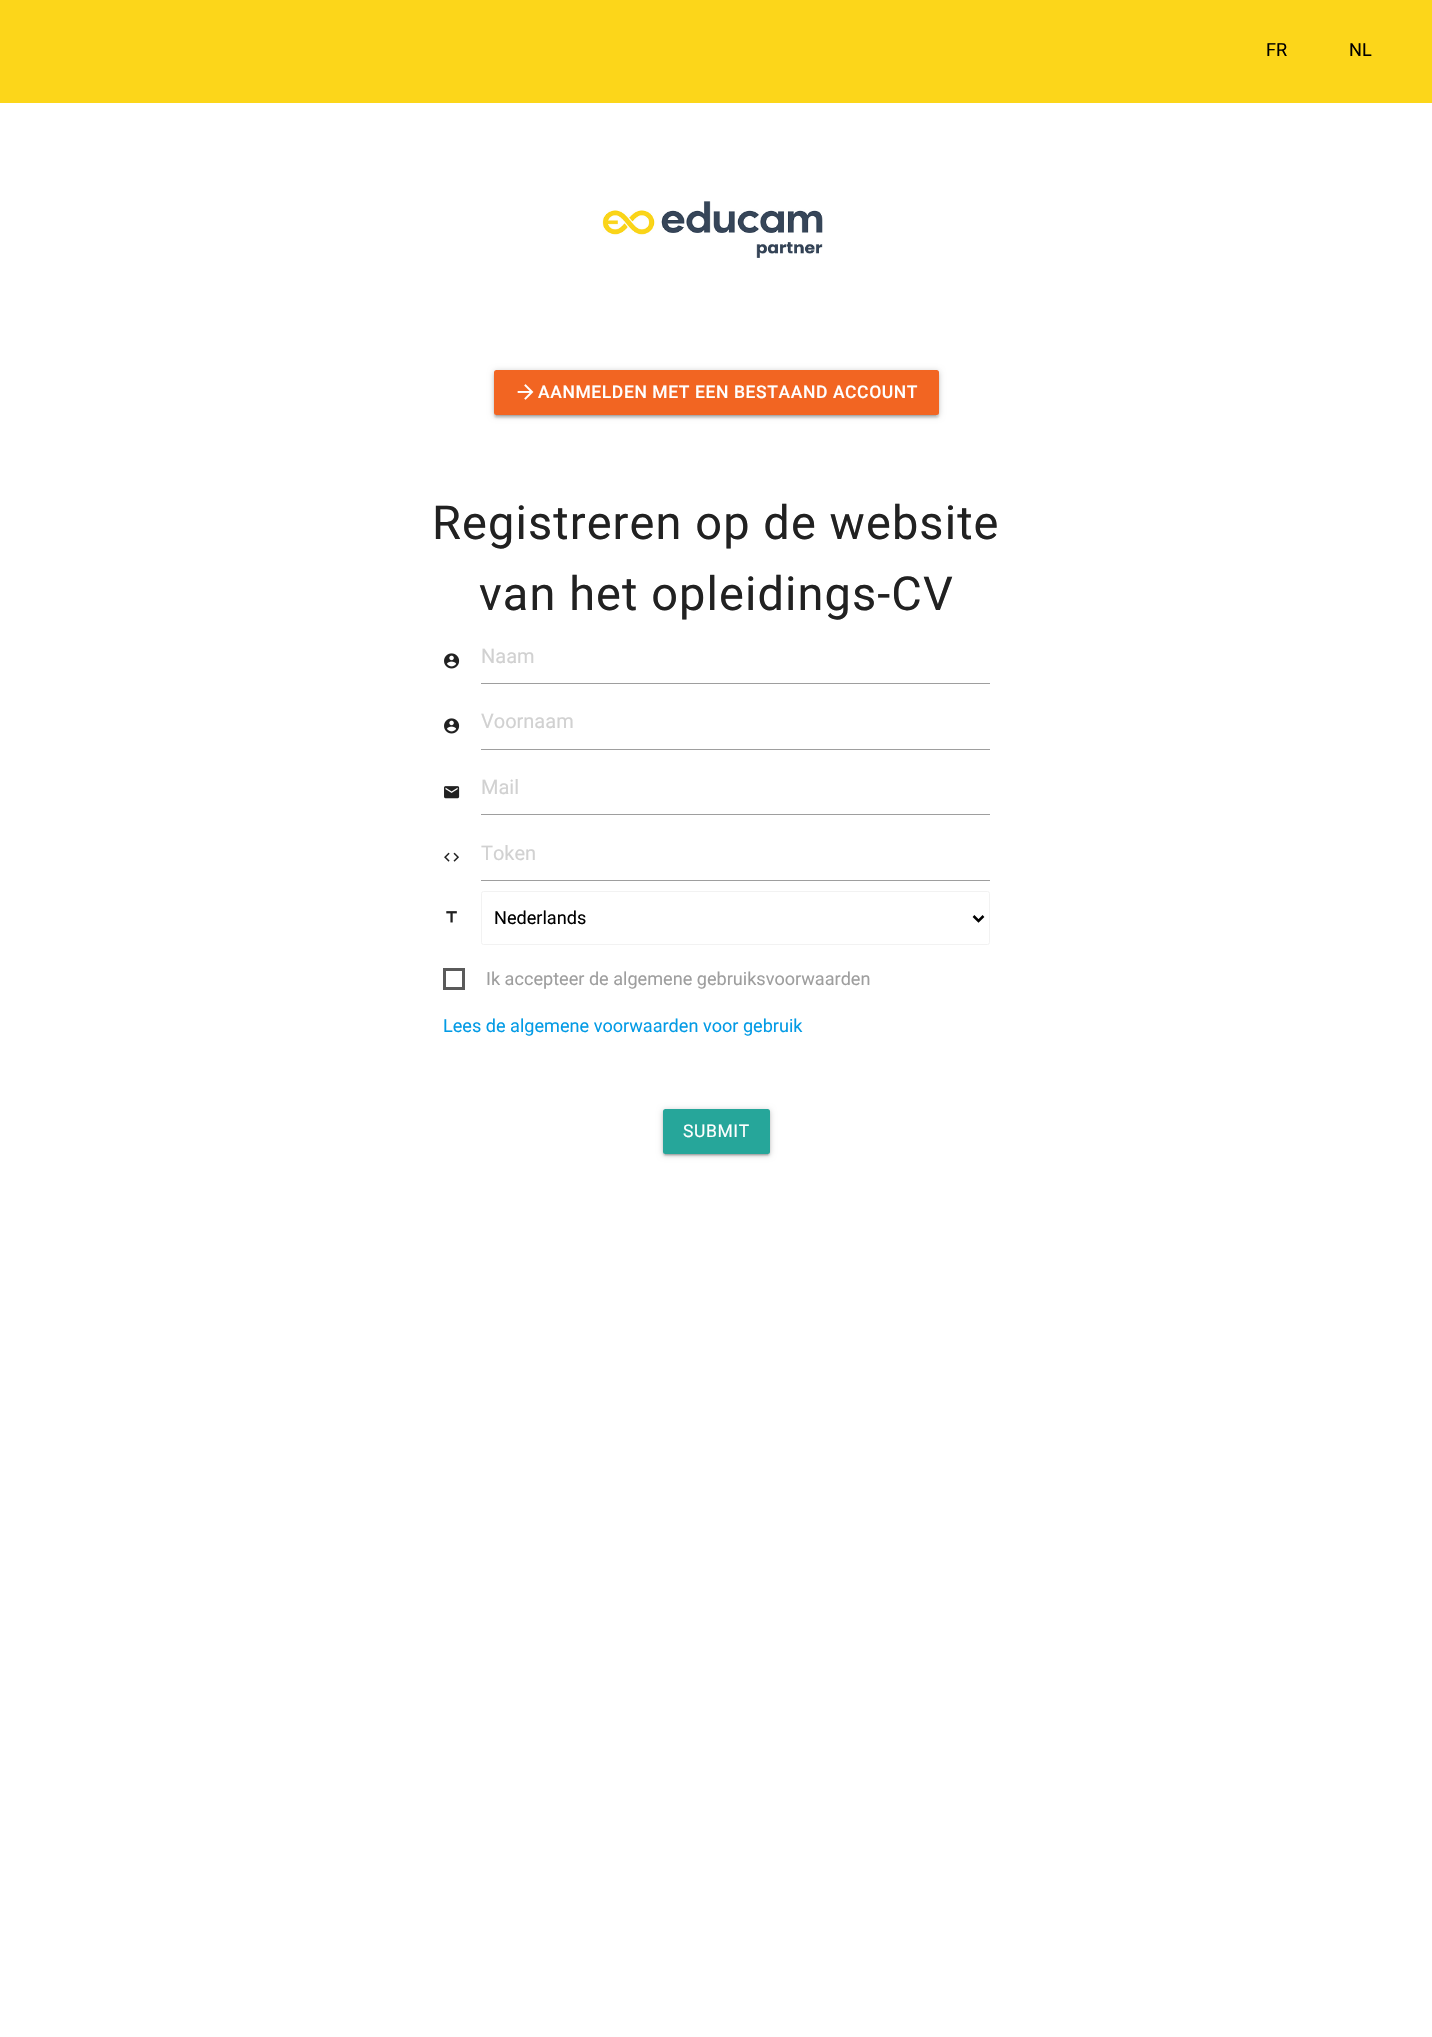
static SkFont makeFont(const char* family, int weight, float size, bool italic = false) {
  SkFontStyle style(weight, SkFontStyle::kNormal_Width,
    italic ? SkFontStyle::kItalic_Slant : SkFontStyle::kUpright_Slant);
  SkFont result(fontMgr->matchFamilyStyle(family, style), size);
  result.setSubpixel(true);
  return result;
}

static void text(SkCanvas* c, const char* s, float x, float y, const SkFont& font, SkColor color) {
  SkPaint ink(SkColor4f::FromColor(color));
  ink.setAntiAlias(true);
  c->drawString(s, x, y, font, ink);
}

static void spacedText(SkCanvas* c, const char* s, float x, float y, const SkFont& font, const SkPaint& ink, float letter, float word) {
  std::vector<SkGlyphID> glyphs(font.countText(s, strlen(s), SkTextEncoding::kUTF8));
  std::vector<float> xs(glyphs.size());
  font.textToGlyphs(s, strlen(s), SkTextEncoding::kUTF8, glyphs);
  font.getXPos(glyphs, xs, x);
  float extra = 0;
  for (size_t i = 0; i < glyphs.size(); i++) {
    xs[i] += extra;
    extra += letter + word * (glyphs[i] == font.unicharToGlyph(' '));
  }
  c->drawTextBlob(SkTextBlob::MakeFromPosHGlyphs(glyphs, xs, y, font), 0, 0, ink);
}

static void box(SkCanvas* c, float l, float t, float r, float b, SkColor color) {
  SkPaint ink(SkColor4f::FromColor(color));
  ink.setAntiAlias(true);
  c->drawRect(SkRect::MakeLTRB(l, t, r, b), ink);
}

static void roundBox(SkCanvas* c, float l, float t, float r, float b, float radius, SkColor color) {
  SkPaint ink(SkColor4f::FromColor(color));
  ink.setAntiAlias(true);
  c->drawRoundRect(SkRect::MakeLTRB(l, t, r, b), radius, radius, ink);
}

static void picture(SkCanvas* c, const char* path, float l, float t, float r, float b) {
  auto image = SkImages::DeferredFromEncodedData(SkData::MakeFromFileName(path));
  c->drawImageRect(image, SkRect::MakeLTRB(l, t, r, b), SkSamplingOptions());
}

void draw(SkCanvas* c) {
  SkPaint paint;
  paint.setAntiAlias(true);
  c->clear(0xffffffff);
  box(c, 0, 0, 1432, 103, 0xfffcd61a);
  SkFont face1 = makeFont("Roboto", 400, 18.1f);
  text(c, "FR", 1266, 56, face1, 0xff000000);
  text(c, "NL", 1349, 56, face1, 0xff000000);
  picture(c, "img_01.png", 602, 201, 823, 258);
  paint.setColor(0x33000000);
  paint.setMaskFilter(SkMaskFilter::MakeBlur(kNormal_SkBlurStyle, 3));
  c->drawRoundRect(SkRect::MakeLTRB(494, 371, 939, 416), 2.5f, 2.5f, paint);
  paint.setMaskFilter(nullptr);
  paint.setColor(0x1f000000);
  paint.setMaskFilter(SkMaskFilter::MakeBlur(kNormal_SkBlurStyle, 0.5f));
  c->drawRect(SkRect::MakeLTRB(496, 376, 936, 416), paint);
  paint.setMaskFilter(nullptr);
  paint.setColor(0x24000000);
  paint.setMaskFilter(SkMaskFilter::MakeBlur(kNormal_SkBlurStyle, 1));
  c->drawRoundRect(SkRect::MakeLTRB(494, 373, 939, 418), 2.5f, 2.5f, paint);
  paint.setMaskFilter(nullptr);
  roundBox(c, 494, 370, 939, 415, 2.5f, 0xfff26522);
  picture(c, "img_02.png", 517, 384, 534, 400);
  SkFont face2 = makeFont("Roboto", 500, 17.5f);
  paint.setColor(0xffffffff);
  spacedText(c, "AANMELDEN MET EEN BESTAAND ACCOUNT", 538, 398, face2, paint, 0.6f, 0);
  SkFont face3 = makeFont("Roboto", 400, 46.9f);
  paint.setColor(0xff212121);
  spacedText(c, "Registreren op de website", 432, 539, face3, paint, 1.1f, 0);
  spacedText(c, "van het opleidings-CV", 479, 610, face3, paint, 1.1f, 0);
  picture(c, "img_03.png", 444, 653, 460, 669);
  box(c, 481, 683, 990, 684, 0xff9e9e9e);
  SkFont face4 = makeFont("Roboto", 400, 20);
  text(c, "Naam", 481, 663, face4, 0xffd1d1d1);
  picture(c, "img_03.png", 444, 718, 460, 734);
  box(c, 481, 749, 990, 750, 0xff9e9e9e);
  text(c, "Voornaam", 481, 728, face4, 0xffd1d1d1);
  picture(c, "img_04.png", 444, 786, 460, 799);
  box(c, 481, 814, 990, 815, 0xff9e9e9e);
  text(c, "Mail", 481, 794, face4, 0xffd1d1d1);
  picture(c, "img_05.png", 444, 852, 459, 862);
  box(c, 481, 880, 990, 881, 0xff9e9e9e);
  text(c, "Token", 481, 860, face4, 0xffd1d1d1);
  picture(c, "img_06.png", 446, 911, 457, 923);
  paint.setStyle(SkPaint::kStroke_Style);
  paint.setStrokeWidth(1);
  paint.setColor(0xfff2f2f2);
  c->drawRoundRect(SkRect::MakeLTRB(481.5f, 891.5f, 989.5f, 944.5f), 2, 2, paint);
  paint.setStrokeWidth(2.5f);
  paint.setColor(0xff000000);
  c->drawPath(SkPathBuilder().moveTo(973.5f, 916).lineTo(978.5f, 921).lineTo(983.5f, 916).detach(), paint);
  text(c, "Nederlands", 494, 924, face1, 0xff000000);
  paint.setStrokeWidth(3);
  paint.setColor(0xff5a5a5a);
  c->drawRect(SkRect::MakeLTRB(444.5f, 969.5f, 463.5f, 988.5f), paint);
  text(c, "Ik accepteer de algemene gebruiksvoorwaarden", 486, 985, face1, 0xff9e9e9e);
  text(c, "Lees de algemene voorwaarden voor gebruik", 443, 1032, face1, 0xff039be5);
  paint.setStyle(SkPaint::kFill_Style);
  paint.setColor(0x33000000);
  paint.setMaskFilter(SkMaskFilter::MakeBlur(kNormal_SkBlurStyle, 3));
  c->drawRoundRect(SkRect::MakeLTRB(663, 1110, 770, 1155), 2.5f, 2.5f, paint);
  paint.setMaskFilter(nullptr);
  paint.setColor(0x1f000000);
  paint.setMaskFilter(SkMaskFilter::MakeBlur(kNormal_SkBlurStyle, 0.5f));
  c->drawRect(SkRect::MakeLTRB(665, 1115, 768, 1155), paint);
  paint.setMaskFilter(nullptr);
  paint.setColor(0x24000000);
  paint.setMaskFilter(SkMaskFilter::MakeBlur(kNormal_SkBlurStyle, 1));
  c->drawRoundRect(SkRect::MakeLTRB(663, 1111, 770, 1156), 2.5f, 2.5f, paint);
  paint.setMaskFilter(nullptr);
  roundBox(c, 663, 1109, 770, 1154, 2.5f, 0xff26a69a);
  SkFont face5 = makeFont("Roboto", 400, 17.5f);
  paint.setColor(0xffffffff);
  spacedText(c, "SUBMIT", 683, 1137, face5, paint, 0.6f, 0);
}
